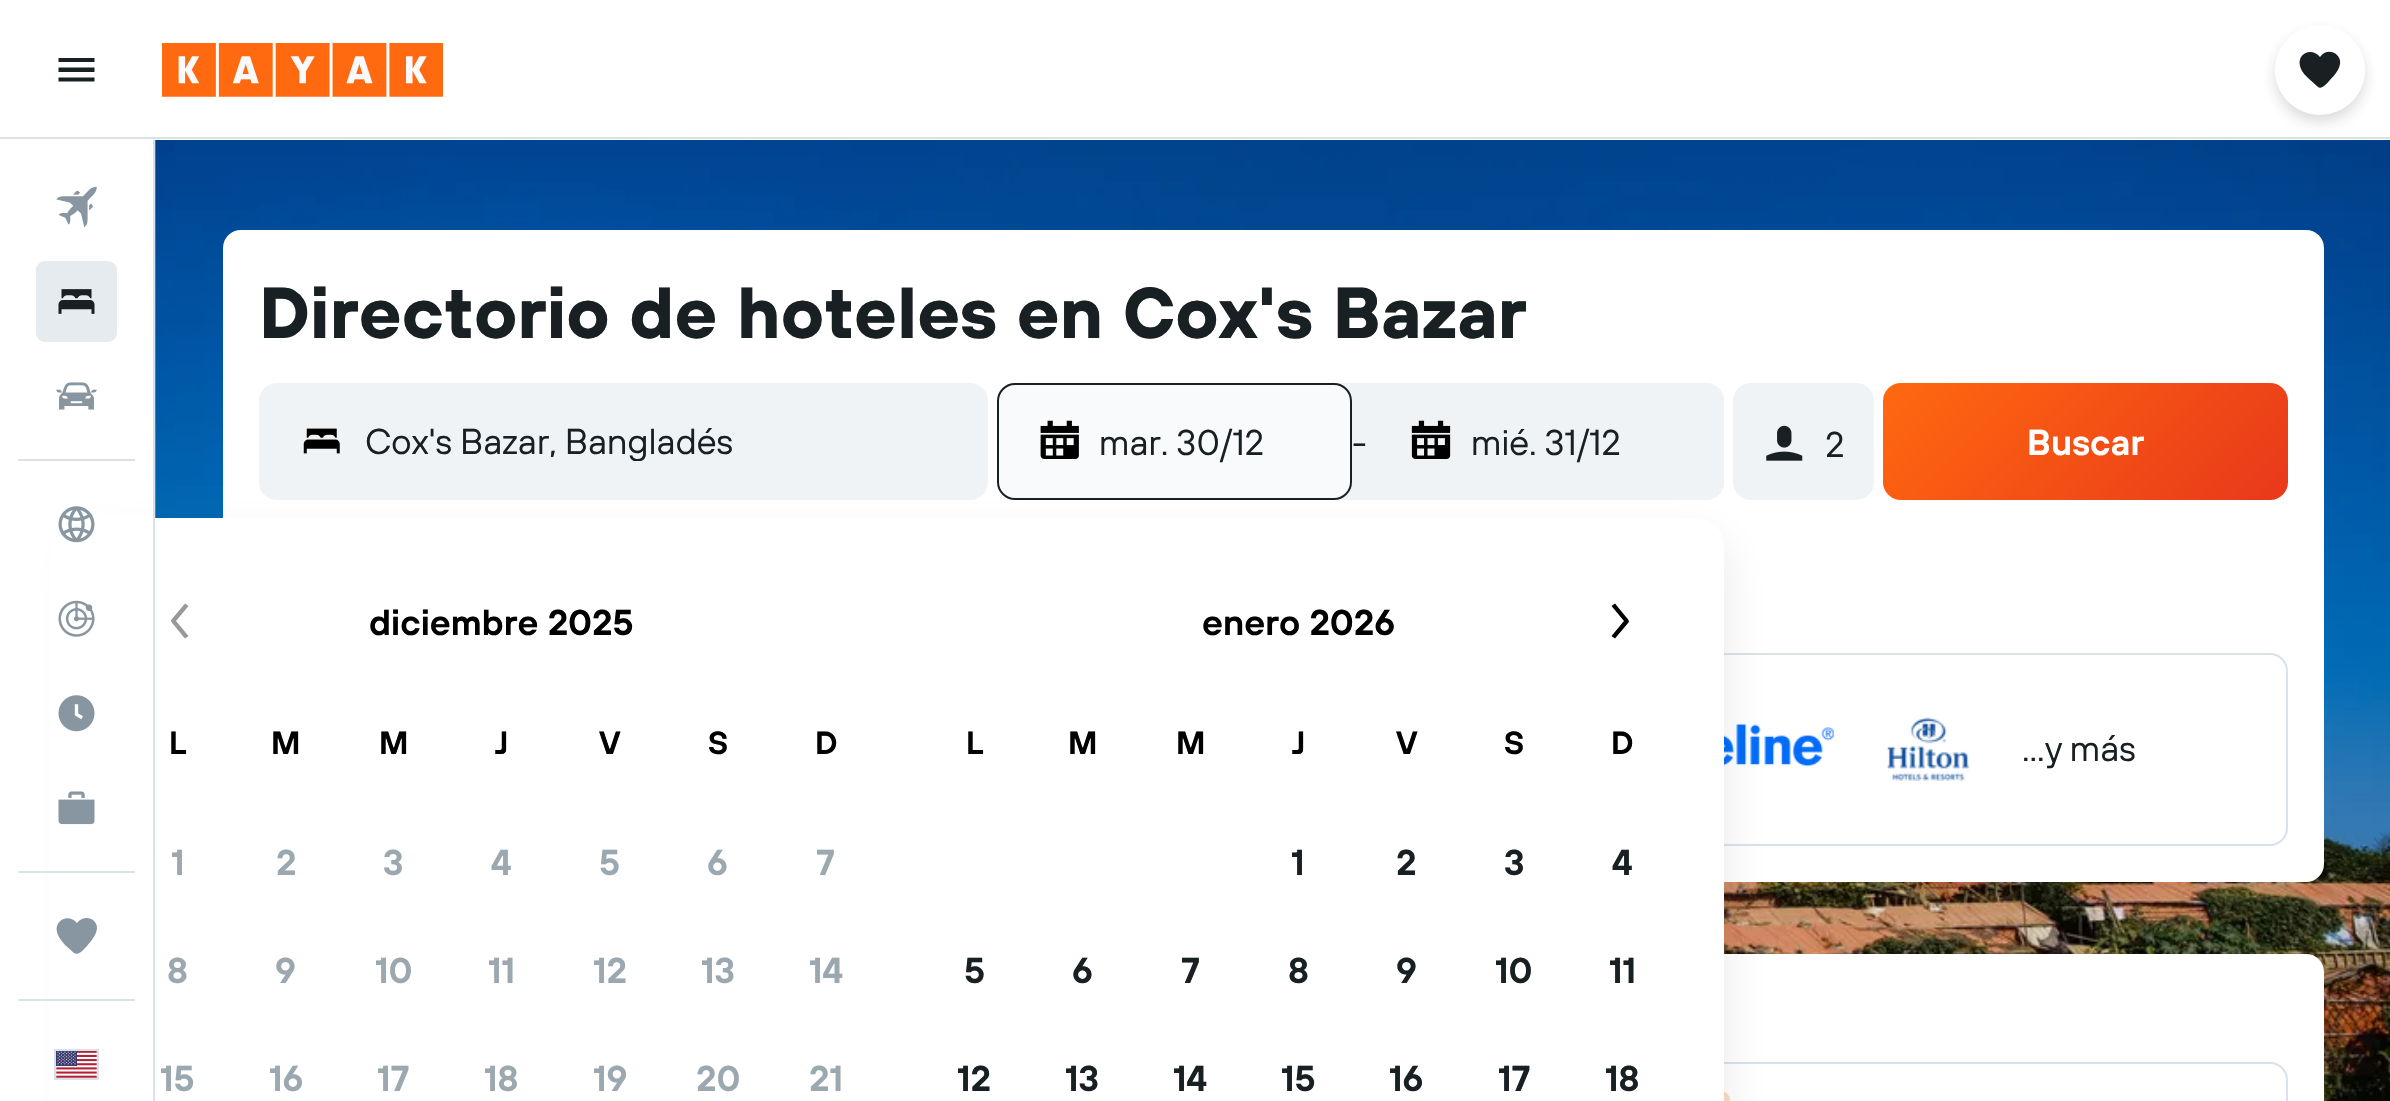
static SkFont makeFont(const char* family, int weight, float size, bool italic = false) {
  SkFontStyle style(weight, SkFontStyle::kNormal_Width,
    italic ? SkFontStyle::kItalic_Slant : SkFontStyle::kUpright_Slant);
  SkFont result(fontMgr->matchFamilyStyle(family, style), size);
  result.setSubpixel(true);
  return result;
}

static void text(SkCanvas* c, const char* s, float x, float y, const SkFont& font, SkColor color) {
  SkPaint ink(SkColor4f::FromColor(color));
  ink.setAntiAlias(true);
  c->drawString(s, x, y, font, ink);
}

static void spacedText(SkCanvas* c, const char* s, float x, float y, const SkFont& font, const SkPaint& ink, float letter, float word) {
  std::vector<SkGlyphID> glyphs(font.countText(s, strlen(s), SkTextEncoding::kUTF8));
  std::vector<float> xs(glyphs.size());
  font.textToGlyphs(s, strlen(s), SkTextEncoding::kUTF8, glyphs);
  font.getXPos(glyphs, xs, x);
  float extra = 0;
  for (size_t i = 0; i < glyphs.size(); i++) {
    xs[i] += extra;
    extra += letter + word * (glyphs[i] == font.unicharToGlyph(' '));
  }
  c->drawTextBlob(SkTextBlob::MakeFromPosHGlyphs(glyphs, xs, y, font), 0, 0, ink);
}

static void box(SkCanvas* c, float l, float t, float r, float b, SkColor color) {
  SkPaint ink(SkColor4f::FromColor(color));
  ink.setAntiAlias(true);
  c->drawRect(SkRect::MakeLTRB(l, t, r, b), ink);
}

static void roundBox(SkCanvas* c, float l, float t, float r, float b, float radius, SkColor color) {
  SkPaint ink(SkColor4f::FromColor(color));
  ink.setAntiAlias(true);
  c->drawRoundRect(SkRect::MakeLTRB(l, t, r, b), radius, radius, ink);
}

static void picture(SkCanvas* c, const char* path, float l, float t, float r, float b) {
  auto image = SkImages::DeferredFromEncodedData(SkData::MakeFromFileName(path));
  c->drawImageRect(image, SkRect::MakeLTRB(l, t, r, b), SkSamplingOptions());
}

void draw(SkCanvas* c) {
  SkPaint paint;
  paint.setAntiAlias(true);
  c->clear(0xffffffff);
  box(c, 0, 137, 2390, 139, 0xffd9e2e8);
  paint.setColor(0xff192024);
  c->drawPath(SkPathBuilder().moveTo(58.5f, 81.5f).lineTo(94.5f, 81.5f).lineTo(94.5f, 77.5f).lineTo(58.5f, 77.5f).close().moveTo(58.5f, 72).lineTo(94.5f, 72).lineTo(94.5f, 67.5f).lineTo(58.5f, 67.5f).close().moveTo(58.5f, 58).lineTo(58.5f, 62).lineTo(94.5f, 62).lineTo(94.5f, 58).close().detach(), paint);
  picture(c, "img_01.png", 162, 43, 443, 97);
  picture(c, "img_10.png", 155, 140, 2390, 1101);
  paint.setColor(0x29192024);
  paint.setMaskFilter(SkMaskFilter::MakeBlur(kNormal_SkBlurStyle, 7));
  c->drawRoundRect(SkRect::MakeLTRB(2275, 32, 2365, 122), 45, 45, paint);
  paint.setMaskFilter(nullptr);
  paint.setColor(0xffffffff);
  c->drawCircle(2320, 70, 45, paint);
  paint.setColor(0xff192024);
  c->drawPath(SkPathBuilder().moveTo(2337, 55).cubicTo(2332, 50, 2324, 51, 2320, 57).cubicTo(2312, 47, 2297, 53, 2300, 66).cubicTo(2301, 71, 2305, 75, 2308, 78).lineTo(2318, 87).cubicTo(2322, 90, 2328, 82, 2330, 80).cubicTo(2336, 74, 2345, 63, 2337, 55).close().detach(), paint);
  roundBox(c, 223, 230, 2324, 882, 18, 0xffffffff);
  paint.setColor(0xfff0f3f5);
  c->drawRoundRect(SkRect::MakeLTRB(260, 384, 987, 499), 17, 17, paint);
  paint.setStyle(SkPaint::kStroke_Style);
  paint.setStrokeWidth(2);
  c->drawRoundRect(SkRect::MakeLTRB(260, 384, 987, 499), 17, 17, paint);
  roundBox(c, 997, 383, 1724, 500, 18, 0xfff0f3f5);
  paint.setStyle(SkPaint::kFill_Style);
  paint.setColor(0xfff9fafb);
  c->drawRoundRect(SkRect::MakeLTRB(998, 384, 1351, 499), 17, 17, paint);
  paint.setStyle(SkPaint::kStroke_Style);
  paint.setColor(0xff192024);
  c->drawRoundRect(SkRect::MakeLTRB(998, 384, 1351, 499), 17, 17, paint);
  roundBox(c, 1368, 383, 1724, 500, 18, 0xfff0f3f5);
  roundBox(c, 1733, 383, 1874, 500, 18, 0xfff0f3f5);
  paint.setColor(0xffd9e2e8);
  c->drawRoundRect(SkRect::MakeLTRB(260, 654, 2287, 845), 17, 17, paint);
  picture(c, "img_15.png", 1724, 724, 1834, 767);
  roundBox(c, 223, 954, 2324, 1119, 18, 0xffffffff);
  c->drawRoundRect(SkRect::MakeLTRB(1630, 1063, 2287, 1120), 17, 17, paint);
  roundBox(c, 1658, 1091, 1730, 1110, 9, 0xffffdac1);
  paint.setStyle(SkPaint::kFill_Style);
  paint.setColor(0x1a192024);
  paint.setMaskFilter(SkMaskFilter::MakeBlur(kNormal_SkBlurStyle, 22.5f));
  c->drawRoundRect(SkRect::MakeLTRB(77, 540, 1724, 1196), 27, 27, paint);
  paint.setMaskFilter(nullptr);
  roundBox(c, 77, 518, 1724, 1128, 27, 0xffffffff);
  box(c, 50, 513, 153, 1101, 0xffffffff);
  box(c, 153, 140, 155, 1101, 0xffd9e2e8);
  picture(c, "img_02.png", 56, 186, 97, 228);
  roundBox(c, 36, 261, 117, 342, 9, 0xffe6ebef);
  picture(c, "img_03.png", 58, 289, 95, 314);
  picture(c, "img_04.png", 56, 382, 97, 410);
  box(c, 18, 459, 135, 461, 0xffd9e2e8);
  picture(c, "img_05.png", 58, 506, 95, 543);
  picture(c, "img_06.png", 58, 600, 95, 637);
  picture(c, "img_07.png", 58, 695, 95, 732);
  picture(c, "img_08.png", 58, 791, 95, 825);
  box(c, 18, 871, 135, 873, 0xffd9e2e8);
  paint.setColor(0xff8796a1);
  c->drawPath(SkPathBuilder().moveTo(94, 921).cubicTo(89, 916, 81, 918, 77, 923).cubicTo(69, 913, 54, 920, 57, 932).cubicTo(58, 937, 62, 941, 65, 945).lineTo(74, 953).cubicTo(79, 956, 84, 949, 87, 946).cubicTo(92, 940, 102, 929, 94, 921).close().detach(), paint);
  box(c, 18, 999, 135, 1001, 0xffd9e2e8);
  paint.setStyle(SkPaint::kStroke_Style);
  paint.setColor(0xffd9e2e8);
  c->drawRect(SkRect::MakeLTRB(55, 1050, 98, 1079), paint);
  picture(c, "img_09.png", 56, 1051, 97, 1078);
  SkFont face1 = makeFont("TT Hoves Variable", 700, 72);
  text(c, "Directorio de hoteles en Cox's Bazar", 259, 338, face1, 0xff192024);
  picture(c, "img_11.png", 303, 428, 340, 454);
  c->save();
  c->clipRect(SkRect::MakeLTRB(365, 421, 965, 461));
  SkFont face2 = makeFont("TT Hoves Variable", 400, 36);
  text(c, "Cox's Bazar, Bangladés", 365, 454, face2, 0xff192024);
  c->restore();
  picture(c, "img_12.png", 1040, 420, 1079, 459);
  text(c, "mar. 30/12", 1099, 455, face2, 0xff192024);
  text(c, "-", 1352, 455, face2, 0xff192024);
  picture(c, "img_13.png", 1411, 420, 1451, 459);
  text(c, "mié. 31/12", 1471, 455, face2, 0xff192024);
  picture(c, "img_14.png", 1766, 425, 1803, 461);
  text(c, "2", 1825, 457, face2, 0xff192024);
  paint.setStyle(SkPaint::kFill_Style);
  {
    const SkColor colors[] = {0xffff690f, 0xffe8381b};
    const float stops[] = {0, 1};
    const SkPoint ends[] = {{1955, 311}, {2216, 572}};
    paint.setShader(SkGradientShader::MakeLinear(ends, colors, stops, 2, SkTileMode::kClamp));
    paint.setAlpha(255);
  }
  c->drawRoundRect(SkRect::MakeLTRB(1883, 383, 2288, 500), 18, 18, paint);
  SkFont face3 = makeFont("TT Hoves Variable", 600, 36);
  text(c, "Buscar", 2027, 455, face3, 0xffffffff);
  picture(c, "img_16.png", 1887, 717, 1969, 781);
  paint.setShader(nullptr);
  paint.setColor(0xff192024);
  spacedText(c, "...y más", 2022, 761, face2, paint, 0, -1);
  paint.setColor(0xff999999);
  c->drawPath(SkPathBuilder().moveTo(185, 638.5f).cubicTo(171, 621, 170, 621.5f, 171.5f, 619.5f).lineTo(185, 603.5f).lineTo(188.5f, 606).lineTo(176, 621).lineTo(188.5f, 636).close().detach(), paint);
  paint.setColor(0xff000000);
  c->drawPath(SkPathBuilder().moveTo(1615, 638.5f).lineTo(1611.5f, 636).lineTo(1624, 621).lineTo(1611.5f, 606).lineTo(1615, 603.5f).cubicTo(1629, 621, 1630, 620.5f, 1628.5f, 622.5f).close().detach(), paint);
  text(c, "diciembre 2025", 369, 635, face3, 0xff000000);
  SkFont face4 = makeFont("TT Hoves Variable", 600, 32);
  text(c, "L", 169, 754, face4, 0xff000000);
  text(c, "M", 271, 754, face4, 0xff000000);
  text(c, "M", 379, 754, face4, 0xff000000);
  text(c, "J", 495, 754, face4, 0xff000000);
  text(c, "V", 599, 754, face4, 0xff000000);
  text(c, "S", 708, 754, face4, 0xff000000);
  text(c, "D", 815, 754, face4, 0xff000000);
  text(c, "1", 171, 875, face3, 0xff9ba8b0);
  text(c, "2", 276, 875, face3, 0xff9ba8b0);
  text(c, "3", 383, 875, face3, 0xff9ba8b0);
  text(c, "4", 491, 875, face3, 0xff9ba8b0);
  text(c, "5", 599, 875, face3, 0xff9ba8b0);
  text(c, "6", 707, 875, face3, 0xff9ba8b0);
  text(c, "7", 816, 875, face3, 0xff9ba8b0);
  text(c, "8", 167, 983, face3, 0xff9ba8b0);
  text(c, "9", 275, 983, face3, 0xff9ba8b0);
  text(c, "10", 375, 983, face3, 0xff9ba8b0);
  text(c, "11", 488, 983, face3, 0xff9ba8b0);
  text(c, "12", 593, 983, face3, 0xff9ba8b0);
  text(c, "13", 701, 983, face3, 0xff9ba8b0);
  text(c, "14", 809, 983, face3, 0xff9ba8b0);
  text(c, "15", 160, 1091, face3, 0xff9ba8b0);
  text(c, "16", 269, 1091, face3, 0xff9ba8b0);
  text(c, "17", 377, 1091, face3, 0xff9ba8b0);
  text(c, "18", 484, 1091, face3, 0xff9ba8b0);
  text(c, "19", 593, 1091, face3, 0xff9ba8b0);
  text(c, "20", 696, 1091, face3, 0xff9ba8b0);
  text(c, "21", 809, 1091, face3, 0xff9ba8b0);
  text(c, "enero 2026", 1202, 635, face3, 0xff000000);
  text(c, "L", 966, 754, face4, 0xff000000);
  text(c, "M", 1068, 754, face4, 0xff000000);
  text(c, "M", 1176, 754, face4, 0xff000000);
  text(c, "J", 1292, 754, face4, 0xff000000);
  text(c, "V", 1396, 754, face4, 0xff000000);
  text(c, "S", 1504, 754, face4, 0xff000000);
  text(c, "D", 1611, 754, face4, 0xff000000);
  text(c, "1", 1291, 875, face3, 0xff192024);
  text(c, "2", 1396, 875, face3, 0xff192024);
  text(c, "3", 1504, 875, face3, 0xff192024);
  text(c, "4", 1612, 875, face3, 0xff192024);
  text(c, "5", 964, 983, face3, 0xff192024);
  text(c, "6", 1072, 983, face3, 0xff192024);
  text(c, "7", 1181, 983, face3, 0xff192024);
  text(c, "8", 1288, 983, face3, 0xff192024);
  text(c, "9", 1396, 983, face3, 0xff192024);
  text(c, "10", 1495, 983, face3, 0xff192024);
  text(c, "11", 1609, 983, face3, 0xff192024);
  text(c, "12", 957, 1091, face3, 0xff192024);
  text(c, "13", 1065, 1091, face3, 0xff192024);
  text(c, "14", 1173, 1091, face3, 0xff192024);
  text(c, "15", 1281, 1091, face3, 0xff192024);
  text(c, "16", 1389, 1091, face3, 0xff192024);
  text(c, "17", 1498, 1091, face3, 0xff192024);
  text(c, "18", 1605, 1091, face3, 0xff192024);
}
